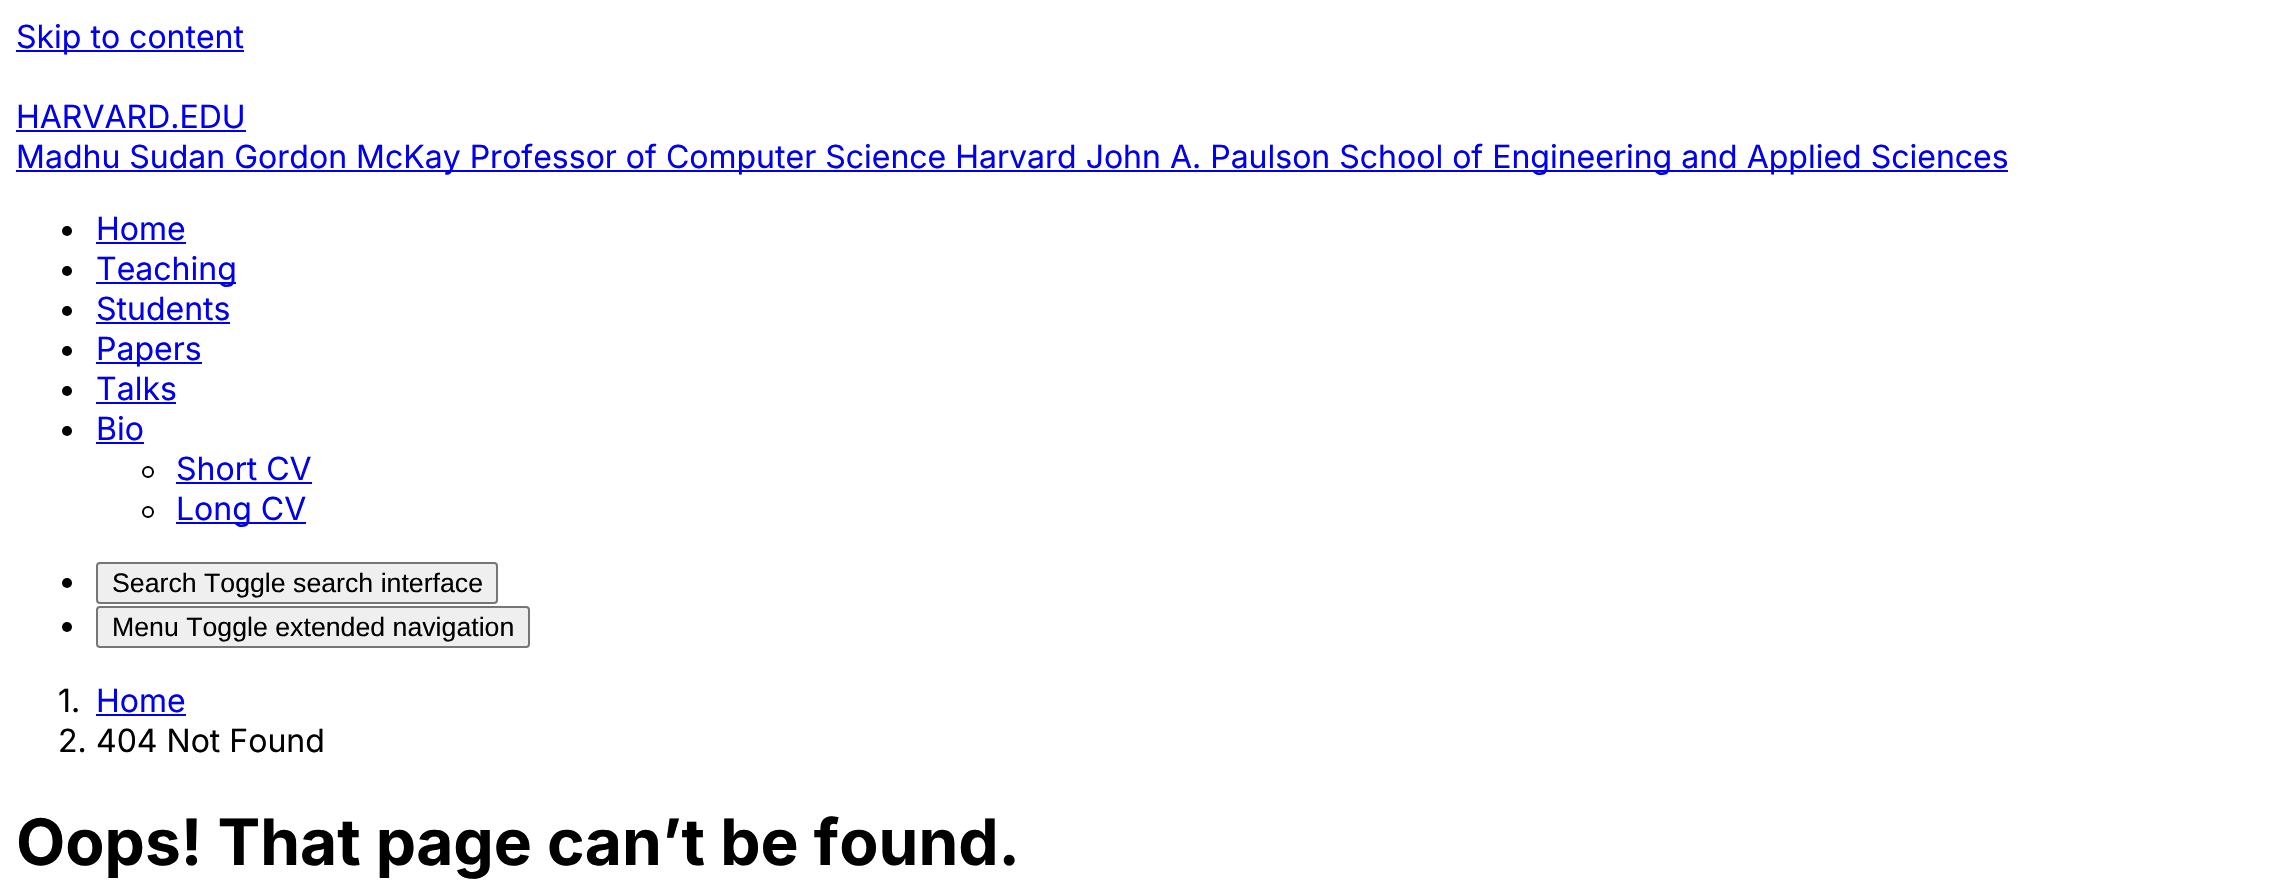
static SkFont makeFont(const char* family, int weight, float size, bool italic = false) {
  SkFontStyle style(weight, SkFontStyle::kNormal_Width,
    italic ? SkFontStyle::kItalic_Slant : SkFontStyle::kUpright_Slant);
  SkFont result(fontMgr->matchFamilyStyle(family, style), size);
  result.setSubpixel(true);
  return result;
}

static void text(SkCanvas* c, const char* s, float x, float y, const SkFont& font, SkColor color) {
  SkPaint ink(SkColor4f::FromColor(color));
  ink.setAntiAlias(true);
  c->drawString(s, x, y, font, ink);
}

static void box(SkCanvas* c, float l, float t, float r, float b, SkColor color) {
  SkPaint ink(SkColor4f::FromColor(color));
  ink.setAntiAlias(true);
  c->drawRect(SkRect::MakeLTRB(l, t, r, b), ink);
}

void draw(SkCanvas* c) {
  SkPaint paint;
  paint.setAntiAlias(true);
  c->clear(0xffffffff);
  box(c, 16, 50, 244, 52, 0xff0000ee);
  SkFont face1 = makeFont("Inter", 400, 32);
  text(c, "Skip to content", 16, 48, face1, 0xff0000ee);
  text(c, "HARVARD.EDU", 16, 128, face1, 0xff0000ee);
  box(c, 16, 130, 246, 132, 0xff0000ee);
  box(c, 16, 170, 2008, 172, 0xff0000ee);
  text(c, "Madhu Sudan Gordon McKay Professor of Computer Science Harvard John A. Paulson School of Engineering and Applied Sciences", 16, 168, face1, 0xff0000ee);
  paint.setColor(0xff000000);
  c->drawCircle(67, 231, 5, paint);
  text(c, "Home", 96, 240, face1, 0xff0000ee);
  box(c, 96, 242, 186, 244, 0xff0000ee);
  c->drawCircle(67, 271, 5, paint);
  box(c, 96, 282, 236, 284, 0xff0000ee);
  text(c, "Teaching", 96, 280, face1, 0xff0000ee);
  c->drawCircle(67, 311, 5, paint);
  text(c, "Students", 96, 320, face1, 0xff0000ee);
  box(c, 96, 322, 230, 324, 0xff0000ee);
  c->drawCircle(67, 351, 5, paint);
  box(c, 96, 362, 202, 364, 0xff0000ee);
  text(c, "Papers", 96, 360, face1, 0xff0000ee);
  c->drawCircle(67, 391, 5, paint);
  text(c, "Talks", 96, 400, face1, 0xff0000ee);
  box(c, 96, 402, 176, 404, 0xff0000ee);
  c->drawCircle(67, 431, 5, paint);
  text(c, "Bio", 96, 440, face1, 0xff0000ee);
  box(c, 96, 442, 144, 444, 0xff0000ee);
  paint.setStyle(SkPaint::kStroke_Style);
  paint.setStrokeWidth(2);
  c->drawCircle(148, 472, 5, paint);
  text(c, "Short CV", 176, 480, face1, 0xff0000ee);
  box(c, 176, 482, 312, 484, 0xff0000ee);
  c->drawCircle(148, 512, 5, paint);
  box(c, 176, 522, 306, 524, 0xff0000ee);
  text(c, "Long CV", 176, 520, face1, 0xff0000ee);
  paint.setStyle(SkPaint::kFill_Style);
  c->drawCircle(67, 583, 5, paint);
  paint.setColor(0xffefefef);
  c->drawRoundRect(SkRect::MakeLTRB(97, 563, 497, 603), 3, 3, paint);
  paint.setStyle(SkPaint::kStroke_Style);
  paint.setColor(0xff767676);
  c->drawRoundRect(SkRect::MakeLTRB(97, 563, 497, 603), 3, 3, paint);
  SkFont face2 = makeFont("Liberation Sans", 400, 26.7f);
  text(c, "Search Toggle search interface", 112, 592, face2, 0xff000000);
  paint.setStyle(SkPaint::kFill_Style);
  paint.setColor(0xff000000);
  c->drawCircle(67, 627, 5, paint);
  paint.setColor(0xffefefef);
  c->drawRoundRect(SkRect::MakeLTRB(97, 607, 529, 647), 3, 3, paint);
  paint.setStyle(SkPaint::kStroke_Style);
  paint.setColor(0xff767676);
  c->drawRoundRect(SkRect::MakeLTRB(97, 607, 529, 647), 3, 3, paint);
  text(c, "Menu Toggle extended navigation", 112, 636, face2, 0xff000000);
  text(c, "1.", 58, 712, face1, 0xff000000);
  text(c, "Home", 96, 712, face1, 0xff0000ee);
  box(c, 96, 714, 186, 716, 0xff0000ee);
  text(c, "2.", 58, 752, face1, 0xff000000);
  text(c, "404 Not Found", 96, 752, face1, 0xff000000);
  SkFont face3 = makeFont("Inter", 700, 64);
  text(c, "Oops! That page can’t be found.", 16, 865, face3, 0xff000000);
}
